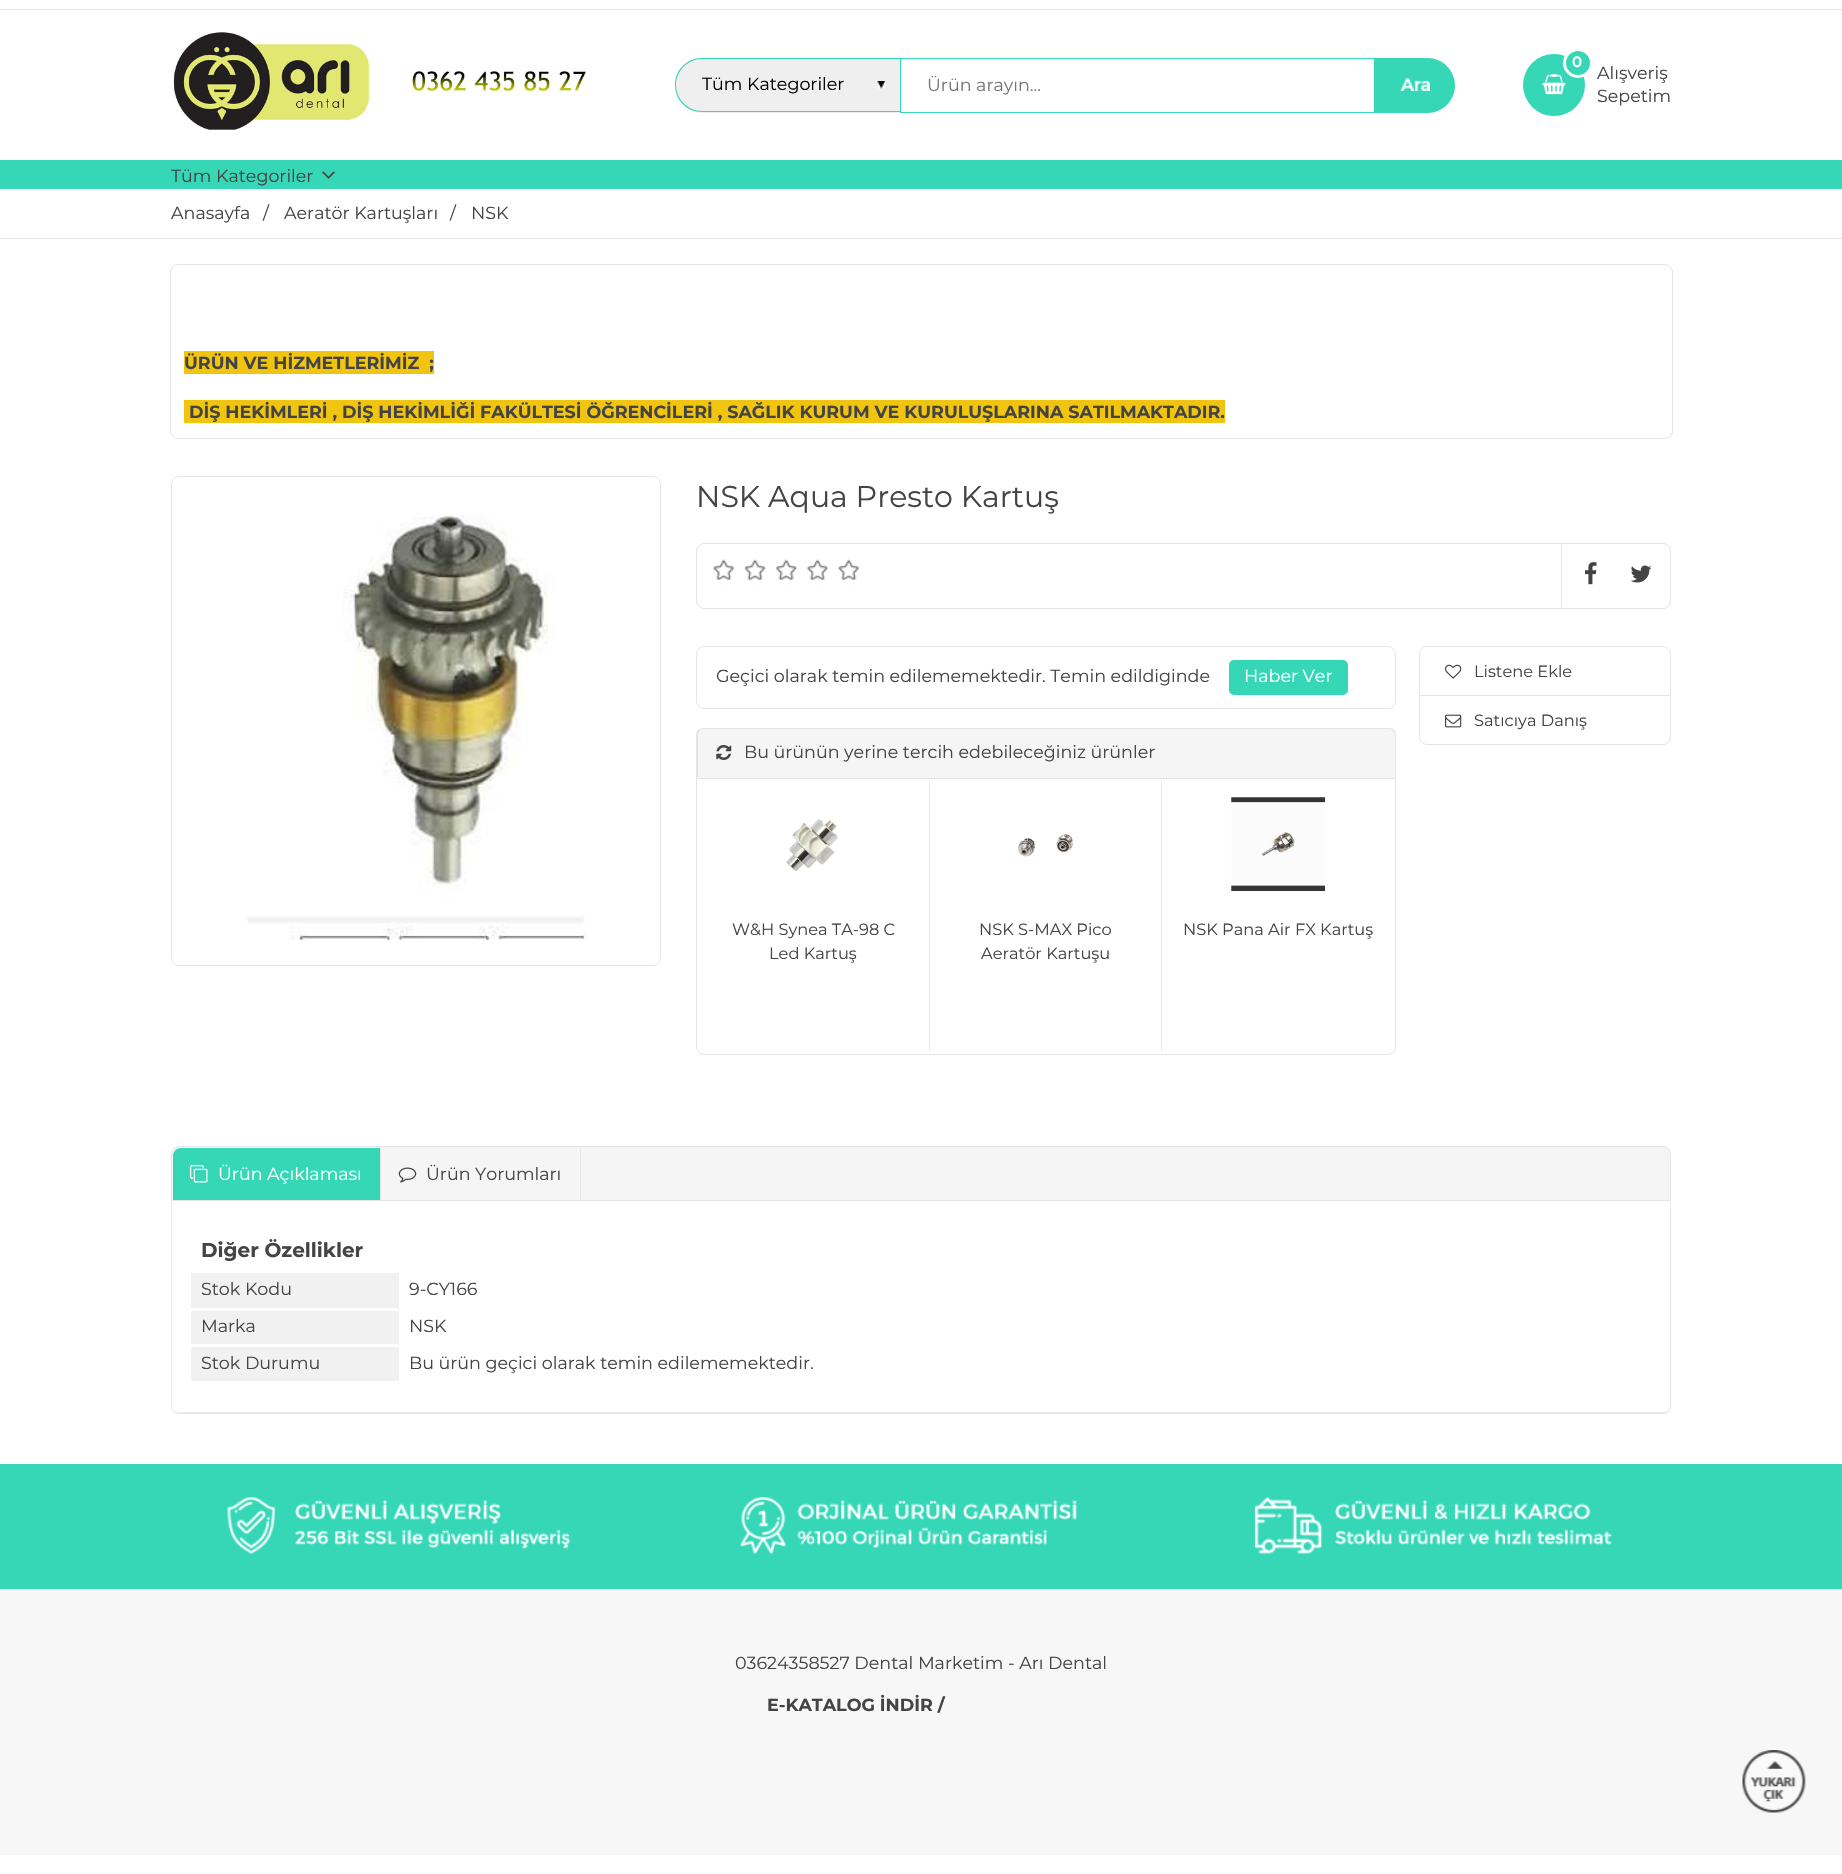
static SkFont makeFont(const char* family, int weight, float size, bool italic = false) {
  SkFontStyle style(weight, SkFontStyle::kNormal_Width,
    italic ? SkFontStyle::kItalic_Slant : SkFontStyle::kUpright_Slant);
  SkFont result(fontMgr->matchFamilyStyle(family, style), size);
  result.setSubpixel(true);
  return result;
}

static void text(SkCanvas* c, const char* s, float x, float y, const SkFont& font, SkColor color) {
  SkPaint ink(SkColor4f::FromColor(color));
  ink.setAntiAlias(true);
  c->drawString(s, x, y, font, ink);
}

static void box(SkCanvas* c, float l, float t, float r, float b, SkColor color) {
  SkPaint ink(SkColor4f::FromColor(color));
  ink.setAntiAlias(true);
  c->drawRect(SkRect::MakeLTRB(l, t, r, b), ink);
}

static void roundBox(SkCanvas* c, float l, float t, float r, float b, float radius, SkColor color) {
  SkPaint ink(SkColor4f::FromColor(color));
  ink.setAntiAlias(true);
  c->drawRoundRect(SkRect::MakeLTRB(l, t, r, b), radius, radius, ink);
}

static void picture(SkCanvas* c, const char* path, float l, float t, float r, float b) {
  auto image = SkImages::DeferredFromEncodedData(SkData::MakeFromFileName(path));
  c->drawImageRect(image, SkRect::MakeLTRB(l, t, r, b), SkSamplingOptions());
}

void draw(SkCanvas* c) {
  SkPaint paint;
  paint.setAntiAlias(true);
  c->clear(0xffffffff);
  box(c, 0, 9, 1842, 10, 0xffe5e5e5);
  picture(c, "img_01.png", 173, 32, 586, 130);
  paint.setColor(0xffefefef);
  c->drawPath(SkPathBuilder().moveTo(702.5f, 58).lineTo(900, 58).lineTo(900, 113).lineTo(702.5f, 113).cubicTo(687.5f, 113, 675, 100.5f, 675, 85.5f).cubicTo(675, 70.5f, 687.5f, 58, 702.5f, 58).close().detach(), paint);
  picture(c, "img_02.png", 877, 81, 885, 89);
  paint.setColor(0xff36d7b7);
  c->drawPath(SkPathBuilder(SkPathFillType::kEvenOdd).moveTo(702, 58).lineTo(900, 58).lineTo(900, 112).lineTo(702, 112).cubicTo(687, 112, 675, 100, 675, 85).cubicTo(675, 70, 687, 58, 702, 58).close().moveTo(702, 59).lineTo(900, 59).lineTo(900, 111).lineTo(702, 111).cubicTo(688, 111, 676, 99, 676, 85).cubicTo(676, 71, 688, 59, 702, 59).close().detach(), paint);
  SkFont face1 = makeFont("Montserrat", 400, 17.5f);
  text(c, "Tüm Kategoriler", 702, 90, face1, 0xff000000);
  paint.setStyle(SkPaint::kStroke_Style);
  paint.setStrokeWidth(1);
  c->drawRect(SkRect::MakeLTRB(900.5f, 58.5f, 1374.5f, 112.5f), paint);
  text(c, "Ürün arayın...", 927, 91, face1, 0xff757575);
  paint.setStyle(SkPaint::kFill_Style);
  c->drawPath(SkPathBuilder().moveTo(1375, 58).lineTo(1427.5f, 58).cubicTo(1442.5f, 58, 1455, 70.5f, 1455, 85.5f).cubicTo(1455, 100.5f, 1442.5f, 113, 1427.5f, 113).lineTo(1375, 113).close().detach(), paint);
  picture(c, "img_03.png", 1400, 78, 1430, 91);
  c->drawCircle(1554, 85, 31, paint);
  picture(c, "img_04.png", 1542, 74, 1566, 95);
  c->drawCircle(1578, 63, 13.5f, paint);
  paint.setStyle(SkPaint::kStroke_Style);
  paint.setStrokeWidth(3);
  paint.setColor(0xffffffff);
  c->drawCircle(1578, 63, 13.5f, paint);
  SkFont face2 = makeFont("Montserrat", 600, 15);
  text(c, "0", 1572, 67, face2, 0xffffffff);
  text(c, "Alışveriş", 1597, 79, face1, 0xff444444);
  text(c, "Sepetim", 1597, 102, face1, 0xff444444);
  box(c, 0, 160, 1842, 189, 0xff36d7b7);
  text(c, "Tüm Kategoriler", 171, 182, face1, 0xff444444);
  picture(c, "img_05.png", 322, 171, 335, 179);
  box(c, 0, 238, 1842, 239, 0xffe5e5e5);
  text(c, "Anasayfa", 171, 219, face1, 0xff444444);
  text(c, "/", 263, 219, face1, 0xff444444);
  text(c, "Aeratör Kartuşları", 284, 219, face1, 0xff444444);
  text(c, "/", 450, 219, face1, 0xff444444);
  text(c, "NSK", 471, 219, face1, 0xff444444);
  paint.setStrokeWidth(1);
  paint.setColor(0xffe5e5e5);
  c->drawRoundRect(SkRect::MakeLTRB(170.5f, 264.5f, 1672.5f, 438.5f), 7.5f, 7.5f, paint);
  box(c, 184, 351, 434, 374, 0xfff1c40f);
  SkFont face3 = makeFont("Montserrat", 700, 17.5f);
  text(c, "ÜRÜN VE HİZMETLERİMİZ  ;", 184, 369, face3, 0xff444444);
  box(c, 184, 400, 1225, 423, 0xfff1c40f);
  text(c, "DİŞ HEKİMLERİ , DİŞ HEKİMLİĞİ FAKÜLTESİ ÖĞRENCİLERİ , SAĞLIK KURUM VE KURULUŞLARINA SATILMAKTADIR.", 189, 418, face3, 0xff444444);
  box(c, 0, 1589, 1842, 1855, 0xfff7f7f7);
  picture(c, "img_06.png", 1742, 1750, 1806, 1813);
  c->drawRoundRect(SkRect::MakeLTRB(171.5f, 476.5f, 660.5f, 965.5f), 7.5f, 7.5f, paint);
  picture(c, "img_07.png", 247, 513, 587, 940);
  SkFont face4 = makeFont("Montserrat", 400, 30);
  text(c, "NSK Aqua Presto Kartuş", 696, 507, face4, 0xff444444);
  c->drawRoundRect(SkRect::MakeLTRB(696.5f, 543.5f, 1670.5f, 608.5f), 7.5f, 7.5f, paint);
  picture(c, "img_08.png", 713, 559, 859, 585);
  box(c, 1561, 544, 1562, 608, 0xffe5e5e5);
  picture(c, "img_09.png", 1585, 562, 1597, 585);
  picture(c, "img_10.png", 1630, 565, 1652, 583);
  c->drawRoundRect(SkRect::MakeLTRB(696.5f, 646.5f, 1395.5f, 708.5f), 7.5f, 7.5f, paint);
  text(c, "Geçici olarak temin edilememektedir. Temin edildiginde", 716, 682, face1, 0xff444444);
  roundBox(c, 1229, 660, 1348, 695, 5, 0xff36d7b7);
  text(c, "Haber Ver", 1244, 682, face1, 0xffffffff);
  paint.setStyle(SkPaint::kFill_Style);
  paint.setColor(0xfff5f5f5);
  c->drawPath(SkPathBuilder().moveTo(704, 728).lineTo(1388, 728).cubicTo(1392.5f, 728, 1396, 731.5f, 1396, 736).lineTo(1396, 778).lineTo(696, 778).lineTo(696, 736).cubicTo(696, 731.5f, 699.5f, 728, 704, 728).close().detach(), paint);
  paint.setColor(0xffe5e5e5);
  c->drawPath(SkPathBuilder(SkPathFillType::kEvenOdd).moveTo(704, 728).lineTo(1389, 728).cubicTo(1393, 728, 1396, 731, 1396, 735).lineTo(1396, 778).lineTo(696, 778).lineTo(696, 735).cubicTo(696, 731, 700, 728, 704, 728).close().moveTo(704, 729).lineTo(1389, 729).cubicTo(1392, 729, 1395, 732, 1395, 735).lineTo(1395, 778).lineTo(698, 778).lineTo(698, 735).cubicTo(698, 732, 700, 729, 704, 729).close().detach(), paint);
  picture(c, "img_11.png", 716, 745, 732, 760);
  text(c, "Bu ürünün yerine tercih edebileceğiniz ürünler", 744, 758, face1, 0xff444444);
  paint.setStyle(SkPaint::kStroke_Style);
  c->drawPath(SkPathBuilder().moveTo(696.5f, 778.5f).lineTo(1395.5f, 778.5f).lineTo(1395.5f, 1047).cubicTo(1395.5f, 1051, 1392, 1054.5f, 1388, 1054.5f).lineTo(704, 1054.5f).cubicTo(700, 1054.5f, 696.5f, 1051, 696.5f, 1047).close().detach(), paint);
  box(c, 929, 781, 930, 1051, 0xffe5e5e5);
  picture(c, "img_12.png", 786, 819, 838, 871);
  SkFont face5 = makeFont("Montserrat", 400, 16.25f);
  text(c, "W&H Synea TA-98 C", 732, 935, face5, 0xff444444);
  text(c, "Led Kartuş", 769, 959, face5, 0xff444444);
  box(c, 1161, 781, 1162, 1051, 0xffe5e5e5);
  picture(c, "img_13.png", 1018, 834, 1073, 857);
  text(c, "NSK S-MAX Pico", 979, 935, face5, 0xff444444);
  text(c, "Aeratör Kartuşu", 981, 959, face5, 0xff444444);
  picture(c, "img_14.png", 1231, 797, 1325, 891);
  text(c, "NSK Pana Air FX Kartuş", 1183, 935, face5, 0xff444444);
  c->drawRoundRect(SkRect::MakeLTRB(1419.5f, 646.5f, 1670.5f, 744.5f), 7.5f, 7.5f, paint);
  box(c, 1420, 695, 1670, 696, 0xffe5e5e5);
  picture(c, "img_15.png", 1445, 664, 1462, 679);
  text(c, "Listene Ekle", 1474, 677, face5, 0xff444444);
  picture(c, "img_16.png", 1445, 714, 1462, 728);
  text(c, "Satıcıya Danış", 1474, 726, face5, 0xff444444);
  paint.setStyle(SkPaint::kFill_Style);
  paint.setColor(0xfff5f5f5);
  c->drawPath(SkPathBuilder().moveTo(179, 1146.5f).lineTo(1663, 1146.5f).cubicTo(1667, 1146.5f, 1670.5f, 1150, 1670.5f, 1154).lineTo(1670.5f, 1200.5f).lineTo(171.5f, 1200.5f).lineTo(171.5f, 1154).cubicTo(171.5f, 1150, 175, 1146.5f, 179, 1146.5f).close().detach(), paint);
  paint.setStyle(SkPaint::kStroke_Style);
  paint.setColor(0xffe5e5e5);
  c->drawPath(SkPathBuilder().moveTo(179, 1146.5f).lineTo(1663, 1146.5f).cubicTo(1667, 1146.5f, 1670.5f, 1150, 1670.5f, 1154).lineTo(1670.5f, 1200.5f).lineTo(171.5f, 1200.5f).lineTo(171.5f, 1154).cubicTo(171.5f, 1150, 175, 1146.5f, 179, 1146.5f).close().detach(), paint);
  paint.setStyle(SkPaint::kFill_Style);
  paint.setColor(0xff36d7b7);
  c->drawPath(SkPathBuilder().moveTo(181, 1148).lineTo(380, 1148).lineTo(380, 1200).lineTo(173, 1200).lineTo(173, 1156).cubicTo(173, 1151.5f, 176.5f, 1148, 181, 1148).close().detach(), paint);
  box(c, 380, 1148, 381, 1200, 0xffe5e5e5);
  picture(c, "img_17.png", 190, 1165, 208, 1183);
  text(c, "Ürün Açıklaması", 218, 1180, face1, 0xffffffff);
  box(c, 580, 1148, 581, 1200, 0xffe5e5e5);
  picture(c, "img_18.png", 398, 1167, 417, 1183);
  text(c, "Ürün Yorumları", 426, 1180, face1, 0xff444444);
  paint.setColor(0xffeaeaea);
  c->drawPath(SkPathBuilder(SkPathFillType::kEvenOdd).moveTo(171, 1201).lineTo(1671, 1201).lineTo(1671, 1406).cubicTo(1671, 1410, 1668, 1414, 1664, 1414).lineTo(179, 1414).cubicTo(175, 1414, 171, 1410, 171, 1406).close().moveTo(172, 1201).lineTo(1670, 1201).lineTo(1670, 1406).cubicTo(1670, 1410, 1667, 1412, 1664, 1412).lineTo(179, 1412).cubicTo(175, 1412, 172, 1410, 172, 1406).close().detach(), paint);
  SkFont face6 = makeFont("Montserrat", 700, 20);
  text(c, "Diğer Özellikler", 201, 1257, face6, 0xff444444);
  box(c, 191, 1273, 399, 1308, 0xfff1f1f1);
  text(c, "Stok Kodu", 201, 1295, face1, 0xff444444);
  text(c, "9-CY166", 409, 1295, face1, 0xff444444);
  box(c, 191, 1311, 399, 1344, 0xfff1f1f1);
  text(c, "Marka", 201, 1332, face1, 0xff444444);
  text(c, "NSK", 409, 1332, face1, 0xff444444);
  box(c, 191, 1347, 399, 1381, 0xfff1f1f1);
  text(c, "Stok Durumu", 201, 1369, face1, 0xff444444);
  text(c, "Bu ürün geçici olarak temin edilememektedir.", 409, 1369, face1, 0xff444444);
  box(c, 0, 1464, 1842, 1589, 0xff36d7b7);
  picture(c, "img_19.png", 227, 1497, 1612, 1554);
  text(c, "03624358527 Dental Marketim - Arı Dental", 735, 1669, face1, 0xff444444);
  text(c, "E-KATALOG İNDİR /", 767, 1711, face3, 0xff444444);
}
